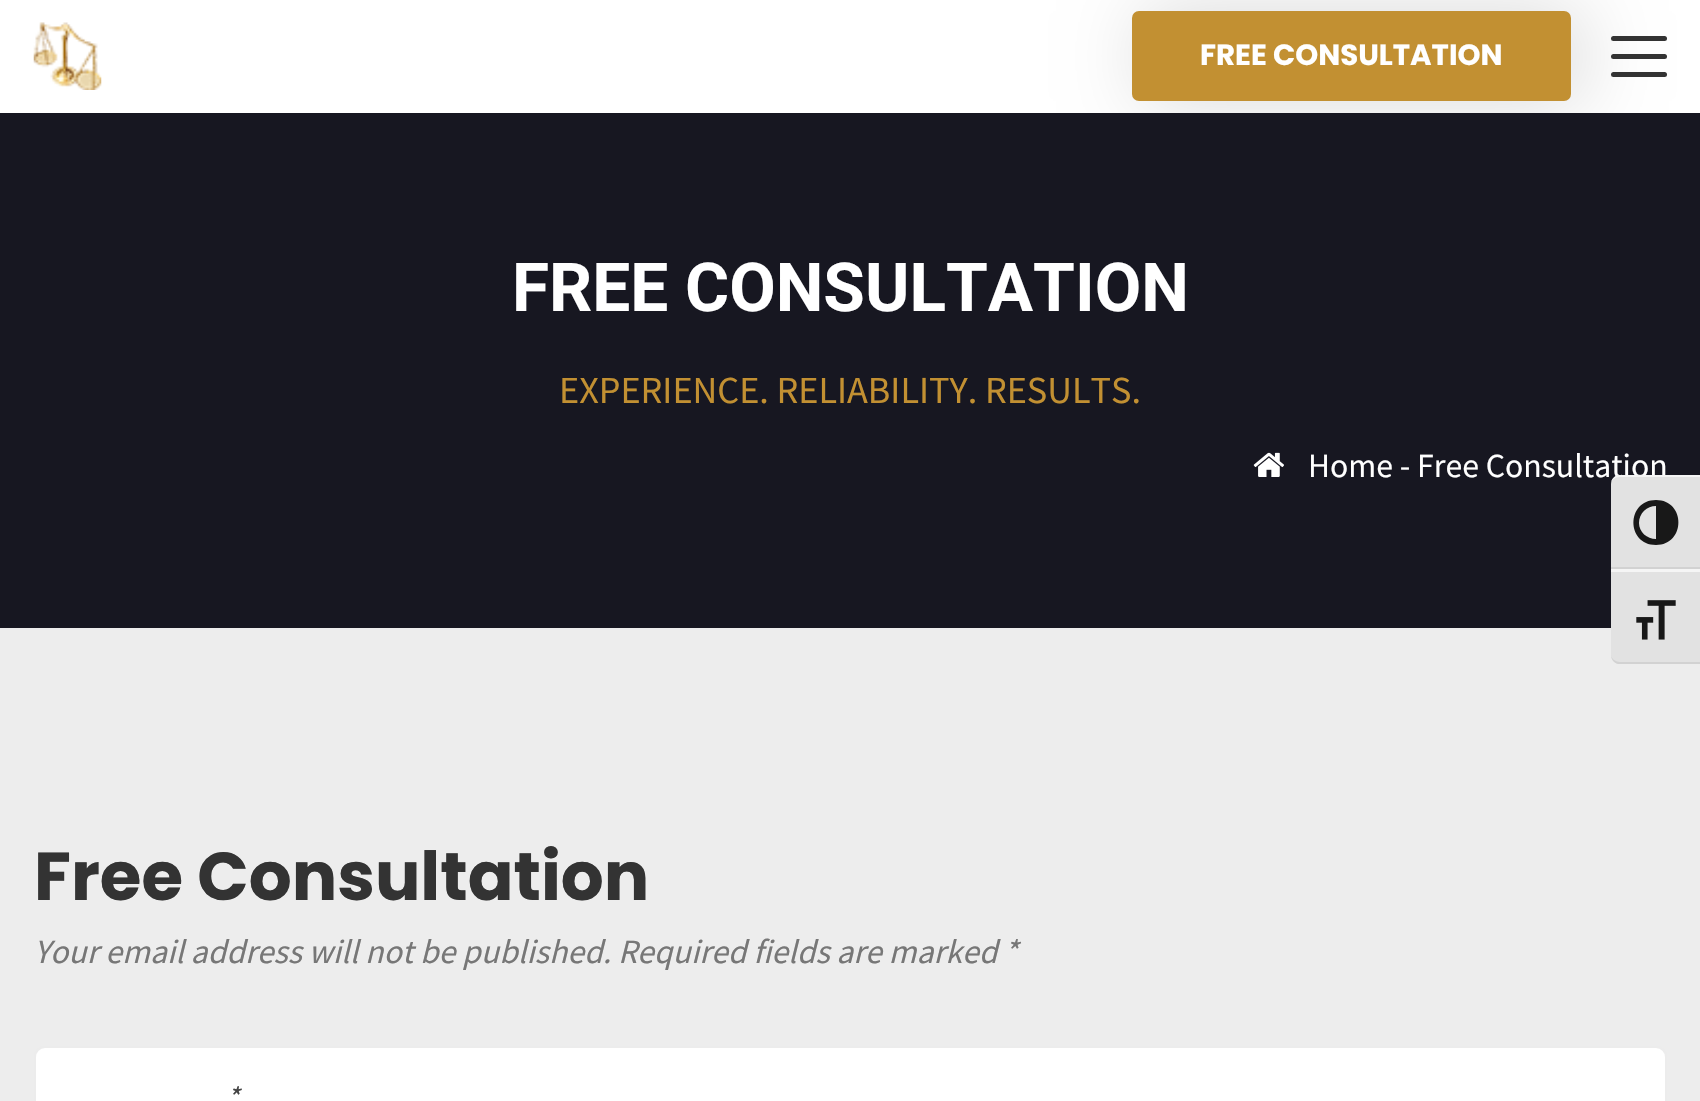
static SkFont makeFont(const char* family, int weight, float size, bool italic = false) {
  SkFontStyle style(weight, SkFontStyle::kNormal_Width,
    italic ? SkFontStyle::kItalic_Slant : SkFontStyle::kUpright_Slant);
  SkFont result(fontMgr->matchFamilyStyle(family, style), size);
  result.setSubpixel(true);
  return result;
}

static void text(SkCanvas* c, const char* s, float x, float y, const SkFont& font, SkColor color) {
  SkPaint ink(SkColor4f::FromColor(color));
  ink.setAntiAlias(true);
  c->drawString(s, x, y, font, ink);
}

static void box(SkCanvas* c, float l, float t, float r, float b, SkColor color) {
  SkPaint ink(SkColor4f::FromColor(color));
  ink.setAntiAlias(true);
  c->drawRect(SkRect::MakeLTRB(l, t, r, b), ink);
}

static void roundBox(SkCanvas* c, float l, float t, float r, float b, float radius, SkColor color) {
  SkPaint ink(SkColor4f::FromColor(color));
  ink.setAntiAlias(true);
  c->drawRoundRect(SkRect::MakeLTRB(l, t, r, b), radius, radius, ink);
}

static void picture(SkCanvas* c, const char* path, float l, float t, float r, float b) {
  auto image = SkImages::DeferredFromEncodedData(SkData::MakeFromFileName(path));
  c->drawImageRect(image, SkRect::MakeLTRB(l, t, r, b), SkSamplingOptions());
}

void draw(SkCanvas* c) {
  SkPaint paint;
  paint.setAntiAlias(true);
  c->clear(0xffffffff);
  picture(c, "img_01.png", 33, 22, 102, 90);
  paint.setColor(0x26000000);
  paint.setMaskFilter(SkMaskFilter::MakeBlur(kNormal_SkBlurStyle, 39.5f));
  c->drawRoundRect(SkRect::MakeLTRB(1143, 11, 1582, 101), 7, 7, paint);
  paint.setMaskFilter(nullptr);
  roundBox(c, 1132, 11, 1571, 101, 7, 0xffc29032);
  SkFont face1 = makeFont("Poppins", 700, 29.25f);
  text(c, "FREE CONSULTATION", 1200, 65, face1, 0xffffffff);
  roundBox(c, 1611, 36, 1667, 41, 2.5f, 0xff333333);
  roundBox(c, 1611, 54, 1667, 59, 2.5f, 0xff333333);
  roundBox(c, 1611, 72, 1667, 77, 2.5f, 0xff333333);
  box(c, 0, 113, 1700, 628, 0xff171721);
  SkFont face2 = makeFont("Roboto", 700, 67.5f);
  text(c, "FREE CONSULTATION", 512, 311, face2, 0xffffffff);
  SkFont face3 = makeFont("Source Sans Pro", 400, 38.25f);
  text(c, "EXPERIENCE. RELIABILITY. RESULTS.", 559, 403, face3, 0xffc29032);
  picture(c, "img_02.png", 1253, 452, 1284, 477);
  SkFont face4 = makeFont("Source Sans Pro", 400, 33.75f);
  text(c, "Home - Free Consultation", 1308, 477, face4, 0xffffffff);
  box(c, 0, 628, 1700, 1101, 0xffededed);
  SkFont face5 = makeFont("Poppins", 700, 67.5f);
  text(c, "Free Consultation", 34, 900, face5, 0xff333333);
  SkFont face6 = makeFont("Source Sans Pro", 400, 33.75f, true);
  text(c, "Your email address will not be published. Required fields are marked *", 34, 963, face6, 0xff777777);
  paint.setColor(0xffffffff);
  c->drawRoundRect(SkRect::MakeLTRB(35, 1047, 1666, 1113), 10, 10, paint);
  paint.setStyle(SkPaint::kStroke_Style);
  paint.setStrokeWidth(2);
  paint.setColor(0xffececec);
  c->drawRoundRect(SkRect::MakeLTRB(35, 1047, 1666, 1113), 10, 10, paint);
  SkFont face7 = makeFont("Source Sans Pro", 400, 29.25f, true);
  text(c, "*", 227, 1107, face7, 0xff444444);
  paint.setStyle(SkPaint::kFill_Style);
  paint.setColor(0xffe2e2e2);
  c->drawPath(SkPathBuilder().moveTo(1620, 475).lineTo(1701, 475).lineTo(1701, 569).lineTo(1611, 569).lineTo(1611, 484).cubicTo(1611, 479, 1615, 475, 1620, 475).close().detach(), paint);
  paint.setColor(0xfff5f5f5);
  c->drawPath(SkPathBuilder().moveTo(1620, 475).lineTo(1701, 475).lineTo(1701, 477).lineTo(1620, 477).cubicTo(1615, 477, 1611, 480, 1611, 484).cubicTo(1611, 479, 1615, 475, 1620, 475).close().detach(), paint);
  box(c, 1611, 567, 1700, 569, 0xffd2d2d2);
  paint.setColor(0xff181818);
  c->drawPath(SkPathBuilder().moveTo(1656, 500).cubicTo(1626, 500, 1626, 545, 1656, 545).cubicTo(1686, 545, 1686, 500, 1656, 500).close().moveTo(1639, 523).cubicTo(1639, 513, 1647, 506, 1656, 506).lineTo(1656, 539).cubicTo(1647, 539, 1639, 532, 1639, 523).close().detach(), paint);
  paint.setColor(0xffe2e2e2);
  c->drawPath(SkPathBuilder().moveTo(1611, 569).lineTo(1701, 569).lineTo(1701, 664).lineTo(1620, 664).cubicTo(1615, 664, 1611, 660, 1611, 655).close().detach(), paint);
  box(c, 1611, 569, 1700, 572, 0xfff5f5f5);
  paint.setColor(0xffd2d2d2);
  c->drawPath(SkPathBuilder().moveTo(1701, 664).lineTo(1618, 664).cubicTo(1614, 663, 1611, 659, 1611, 655).cubicTo(1611, 658, 1615, 662, 1620, 662).lineTo(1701, 662).close().detach(), paint);
  picture(c, "img_03.png", 1636, 600, 1676, 640);
}
